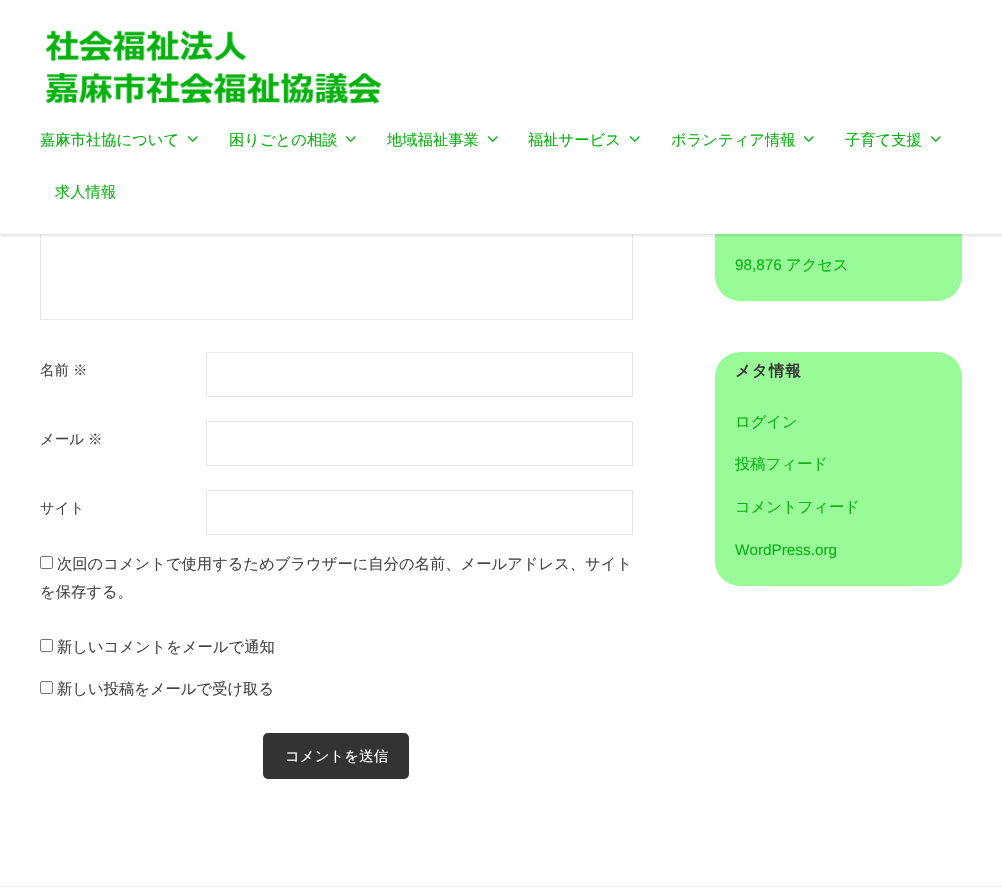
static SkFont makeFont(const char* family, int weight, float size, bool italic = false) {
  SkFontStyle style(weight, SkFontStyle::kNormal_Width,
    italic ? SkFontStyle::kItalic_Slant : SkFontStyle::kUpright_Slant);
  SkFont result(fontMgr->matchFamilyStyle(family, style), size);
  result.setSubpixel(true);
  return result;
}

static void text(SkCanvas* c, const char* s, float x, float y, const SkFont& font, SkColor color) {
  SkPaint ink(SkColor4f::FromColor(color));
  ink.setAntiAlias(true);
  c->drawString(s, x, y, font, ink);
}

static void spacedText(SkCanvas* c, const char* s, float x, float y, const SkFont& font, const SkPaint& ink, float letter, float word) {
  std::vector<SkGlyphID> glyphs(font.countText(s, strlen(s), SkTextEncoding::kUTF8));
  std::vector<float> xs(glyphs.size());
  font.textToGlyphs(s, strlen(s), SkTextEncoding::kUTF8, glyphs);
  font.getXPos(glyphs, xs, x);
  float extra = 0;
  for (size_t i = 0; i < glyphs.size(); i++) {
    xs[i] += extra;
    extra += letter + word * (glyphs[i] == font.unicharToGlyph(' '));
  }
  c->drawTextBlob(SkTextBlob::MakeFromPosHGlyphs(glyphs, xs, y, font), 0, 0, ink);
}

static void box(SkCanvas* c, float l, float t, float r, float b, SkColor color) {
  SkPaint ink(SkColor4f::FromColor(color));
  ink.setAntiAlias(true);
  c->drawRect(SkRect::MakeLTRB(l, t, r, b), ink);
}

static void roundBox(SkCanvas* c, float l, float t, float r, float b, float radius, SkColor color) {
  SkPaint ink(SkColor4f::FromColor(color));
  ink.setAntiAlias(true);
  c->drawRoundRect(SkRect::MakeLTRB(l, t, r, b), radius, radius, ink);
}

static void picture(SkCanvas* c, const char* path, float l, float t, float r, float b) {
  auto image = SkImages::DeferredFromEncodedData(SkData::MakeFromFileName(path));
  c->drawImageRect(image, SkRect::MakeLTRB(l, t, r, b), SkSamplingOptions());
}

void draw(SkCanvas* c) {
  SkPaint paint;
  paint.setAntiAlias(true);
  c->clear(0xffffffff);
  paint.setStyle(SkPaint::kStroke_Style);
  paint.setStrokeWidth(1);
  paint.setColor(0xffe6e6e6);
  c->drawRect(SkRect::MakeLTRB(40.5f, 103.5f, 632.5f, 319.5f), paint);
  roundBox(c, 715, 195, 962, 301, 25, 0xff98fb98);
  paint.setStyle(SkPaint::kFill_Style);
  paint.setColor(0x1a000000);
  paint.setMaskFilter(SkMaskFilter::MakeBlur(kNormal_SkBlurStyle, 1));
  c->drawRect(SkRect::MakeLTRB(0, 2, 1002, 236), paint);
  paint.setMaskFilter(nullptr);
  box(c, 0, 1, 1002, 234, 0xffffffff);
  picture(c, "img_01.png", 45, 30, 382, 104);
  SkFont face1 = makeFont("WenQuanYi Zen Hei", 500, 15.3f);
  text(c, "嘉麻市社協について", 40, 145, face1, 0xff07b20f);
  picture(c, "img_02.png", 187, 136, 198, 142);
  text(c, "困りごとの相談", 229, 145, face1, 0xff07b20f);
  picture(c, "img_02.png", 345, 136, 356, 142);
  text(c, "地域福祉事業", 387, 145, face1, 0xff07b20f);
  picture(c, "img_02.png", 487, 136, 498, 142);
  text(c, "福祉サービス", 528, 145, face1, 0xff07b20f);
  picture(c, "img_02.png", 629, 136, 640, 142);
  text(c, "ボランティア情報", 671, 145, face1, 0xff07b20f);
  picture(c, "img_02.png", 803, 136, 814, 142);
  text(c, "子育て支援", 845, 145, face1, 0xff07b20f);
  picture(c, "img_02.png", 930, 136, 941, 142);
  text(c, "求人情報", 55, 197, face1, 0xff07b20f);
  SkFont face2 = makeFont("WenQuanYi Zen Hei", 500, 14.5f);
  text(c, "名前", 40, 375, face2, 0xff444444);
  text(c, "※", 73, 375, face2, 0xff444444);
  paint.setStyle(SkPaint::kStroke_Style);
  paint.setColor(0xffe6e6e6);
  c->drawRect(SkRect::MakeLTRB(206.5f, 352.5f, 632.5f, 396.5f), paint);
  text(c, "メール", 40, 444, face2, 0xff444444);
  text(c, "※", 88, 444, face2, 0xff444444);
  c->drawRect(SkRect::MakeLTRB(206.5f, 421.5f, 632.5f, 465.5f), paint);
  text(c, "サイト", 40, 513, face2, 0xff444444);
  c->drawRect(SkRect::MakeLTRB(206.5f, 490.5f, 632.5f, 534.5f), paint);
  paint.setColor(0xff767676);
  c->drawRoundRect(SkRect::MakeLTRB(40.5f, 556.5f, 52.5f, 568.5f), 1.5f, 1.5f, paint);
  text(c, "次回のコメントで使用するためブラウザーに自分の名前、メールアドレス、サイト", 57, 569, face1, 0xff444444);
  text(c, "を保存する。", 40, 597, face1, 0xff444444);
  c->drawRoundRect(SkRect::MakeLTRB(40.5f, 639.5f, 52.5f, 651.5f), 1.5f, 1.5f, paint);
  text(c, "新しいコメントをメールで通知", 57, 652, face1, 0xff444444);
  c->drawRoundRect(SkRect::MakeLTRB(40.5f, 681.5f, 52.5f, 693.5f), 1.5f, 1.5f, paint);
  text(c, "新しい投稿をメールで受け取る", 57, 694, face1, 0xff444444);
  roundBox(c, 263, 733, 409, 779, 5, 0xff333333);
  text(c, "コメントを送信", 285, 761, face2, 0xffffffff);
  SkFont face3 = makeFont("Liberation Sans", 400, 15.3f);
  text(c, "98,876", 735, 270, face3, 0xff07b20f);
  text(c, "アクセス", 786, 270, face1, 0xff07b20f);
  roundBox(c, 715, 352, 962, 586, 25, 0xff98fb98);
  SkFont face4 = makeFont("WenQuanYi Zen Hei", 700, 15.5f);
  paint.setStyle(SkPaint::kFill_Style);
  paint.setColor(0xff333333);
  spacedText(c, "メタ情報", 735, 376, face4, paint, 1, 0);
  text(c, "ログイン", 735, 427, face1, 0xff07b20f);
  text(c, "投稿フィード", 735, 469, face1, 0xff07b20f);
  text(c, "コメントフィード", 735, 512, face1, 0xff07b20f);
  text(c, "WordPress.org", 735, 555, face3, 0xff07b20f);
  box(c, 0, 886, 1002, 887, 0xffeeeeee);
}
